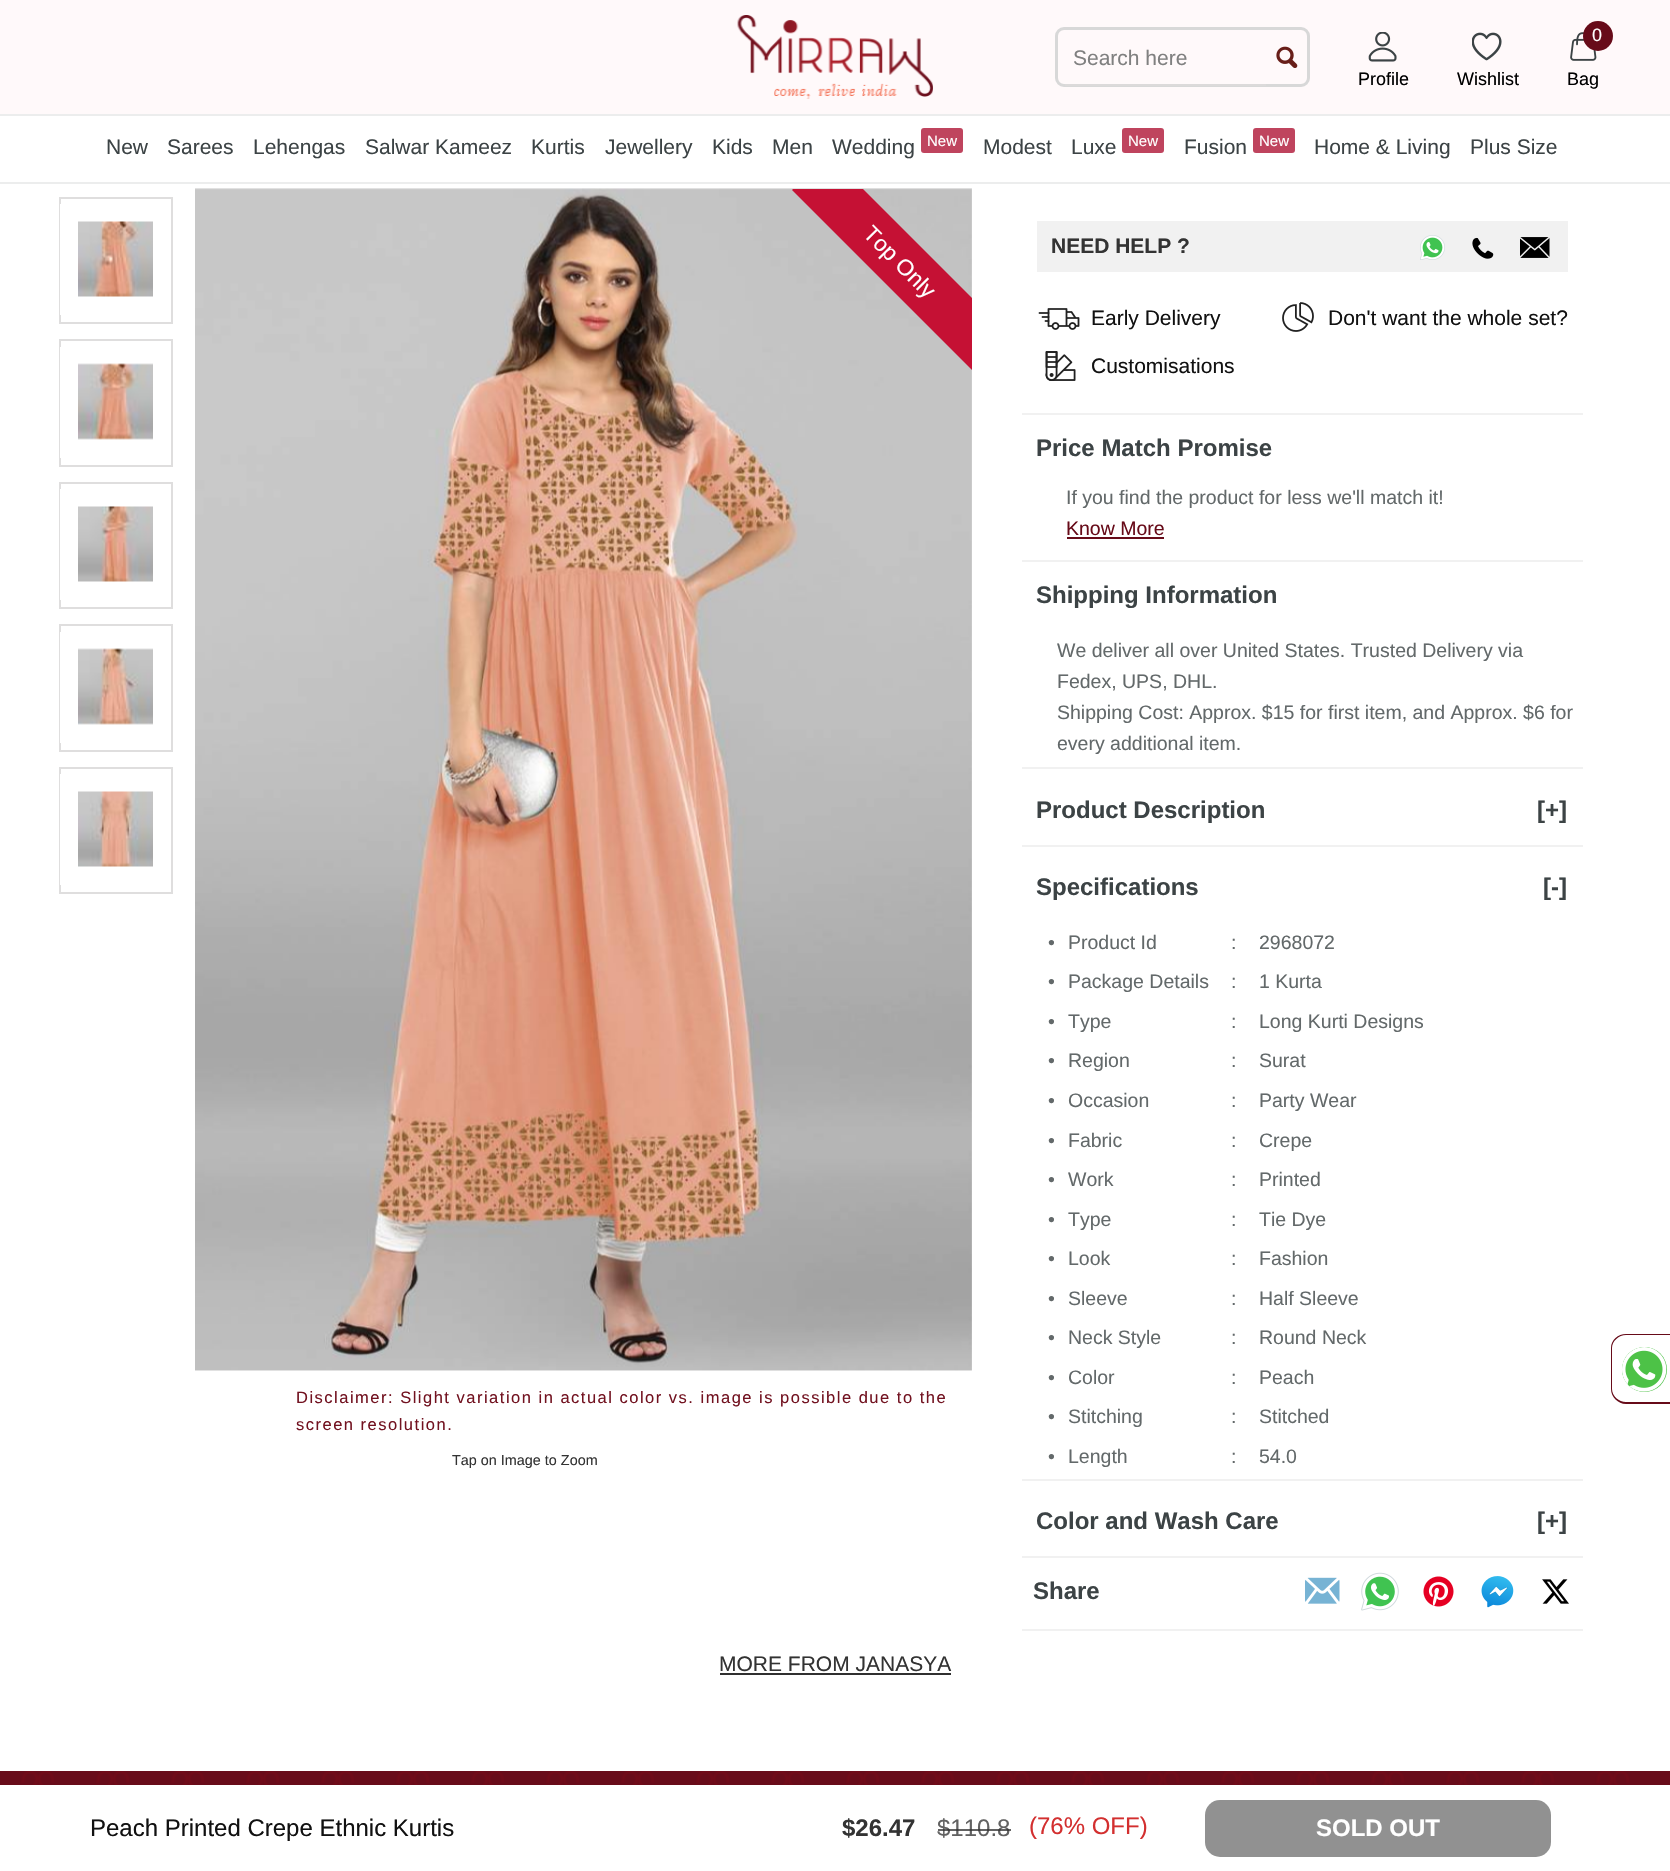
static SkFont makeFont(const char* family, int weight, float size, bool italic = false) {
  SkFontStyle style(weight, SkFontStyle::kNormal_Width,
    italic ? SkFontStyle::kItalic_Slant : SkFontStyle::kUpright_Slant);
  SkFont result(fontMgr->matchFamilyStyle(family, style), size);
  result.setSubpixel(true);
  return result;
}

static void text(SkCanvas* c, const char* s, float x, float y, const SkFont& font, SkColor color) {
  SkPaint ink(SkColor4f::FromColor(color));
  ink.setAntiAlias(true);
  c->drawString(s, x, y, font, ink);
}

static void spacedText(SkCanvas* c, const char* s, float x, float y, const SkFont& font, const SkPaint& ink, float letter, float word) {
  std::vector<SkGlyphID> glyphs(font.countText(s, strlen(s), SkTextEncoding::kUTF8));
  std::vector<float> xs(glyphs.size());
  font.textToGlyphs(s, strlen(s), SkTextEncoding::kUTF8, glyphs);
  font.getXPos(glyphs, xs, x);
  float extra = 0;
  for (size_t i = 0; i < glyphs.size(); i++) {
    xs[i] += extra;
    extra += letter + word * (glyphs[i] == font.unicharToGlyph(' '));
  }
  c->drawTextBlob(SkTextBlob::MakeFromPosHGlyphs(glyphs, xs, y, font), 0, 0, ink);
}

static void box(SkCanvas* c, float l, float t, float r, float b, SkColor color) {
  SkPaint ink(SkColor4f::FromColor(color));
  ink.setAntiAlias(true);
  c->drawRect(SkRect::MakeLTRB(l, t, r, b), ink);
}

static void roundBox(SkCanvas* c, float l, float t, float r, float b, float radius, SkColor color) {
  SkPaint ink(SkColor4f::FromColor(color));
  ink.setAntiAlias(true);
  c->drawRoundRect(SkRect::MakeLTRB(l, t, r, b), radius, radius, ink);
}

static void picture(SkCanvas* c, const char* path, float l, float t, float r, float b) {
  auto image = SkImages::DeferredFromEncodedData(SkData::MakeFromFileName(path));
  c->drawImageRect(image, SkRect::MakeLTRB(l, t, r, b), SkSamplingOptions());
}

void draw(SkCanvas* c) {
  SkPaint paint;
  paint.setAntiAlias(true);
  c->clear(0xffffffff);
  box(c, 0, 0, 1670, 114, 0xfffff9fa);
  box(c, 0, 114, 1670, 116, 0xffeceded);
  picture(c, "img_01.png", 737, 15, 933, 99);
  paint.setStyle(SkPaint::kStroke_Style);
  paint.setStrokeWidth(3);
  paint.setColor(0xffd8d8d8);
  c->drawRoundRect(SkRect::MakeLTRB(1056.5f, 28.5f, 1308.5f, 85.5f), 7.5f, 7.5f, paint);
  box(c, 1065, 84, 1266, 86, 0x1afcedf0);
  SkFont face1 = makeFont("Liberation Sans", 400, 21);
  text(c, "Search here", 1073, 65, face1, 0xff808080);
  picture(c, "img_02.png", 1276, 46, 1298, 68);
  picture(c, "img_03.png", 1368, 32, 1397, 62);
  SkFont face2 = makeFont("Liberation Sans", 400, 18);
  text(c, "Profile", 1358, 85, face2, 0xff000000);
  picture(c, "img_04.png", 1472, 32, 1502, 61);
  text(c, "Wishlist", 1457, 85, face2, 0xff000000);
  picture(c, "img_05.png", 1570, 32, 1597, 61);
  paint.setStyle(SkPaint::kFill_Style);
  paint.setColor(0xff670b19);
  c->drawCircle(1598, 36, 15, paint);
  text(c, "0", 1592, 41, face2, 0xffffffff);
  text(c, "Bag", 1567, 85, face2, 0xff000000);
  box(c, 0, 182, 1670, 184, 0xffeceded);
  text(c, "New", 106, 154, face1, 0xff3c4345);
  text(c, "Sarees", 167, 154, face1, 0xff3c4345);
  text(c, "Lehengas", 253, 154, face1, 0xff3c4345);
  text(c, "Salwar Kameez", 365, 154, face1, 0xff3c4345);
  text(c, "Kurtis", 531, 154, face1, 0xff3c4345);
  text(c, "Jewellery", 605, 154, face1, 0xff3c4345);
  text(c, "Kids", 712, 154, face1, 0xff3c4345);
  text(c, "Men", 772, 154, face1, 0xff3c4345);
  text(c, "Wedding", 832, 154, face1, 0xff3c4345);
  roundBox(c, 921, 128, 963, 153, 3, 0xffbf445e);
  SkFont face3 = makeFont("Liberation Sans", 400, 15);
  text(c, "New", 927, 146, face3, 0xffffffff);
  text(c, "Modest", 983, 154, face1, 0xff3c4345);
  text(c, "Luxe", 1071, 154, face1, 0xff3c4345);
  roundBox(c, 1122, 128, 1164, 153, 3, 0xffbf445e);
  text(c, "New", 1128, 146, face3, 0xffffffff);
  text(c, "Fusion", 1184, 154, face1, 0xff3c4345);
  roundBox(c, 1253, 128, 1295, 153, 3, 0xffbf445e);
  text(c, "New", 1259, 146, face3, 0xffffffff);
  text(c, "Home & Living", 1314, 154, face1, 0xff3c4345);
  text(c, "Plus Size", 1470, 154, face1, 0xff3c4345);
  paint.setStyle(SkPaint::kStroke_Style);
  paint.setStrokeWidth(2);
  paint.setColor(0xffdfdede);
  c->drawRect(SkRect::MakeLTRB(60, 198, 172, 323), paint);
  box(c, 60, 204, 61, 315, 0xffffffff);
  picture(c, "img_06.png", 78, 221, 153, 297);
  c->drawRect(SkRect::MakeLTRB(60, 340, 172, 466), paint);
  box(c, 60, 347, 61, 458, 0xffffffff);
  picture(c, "img_07.png", 78, 363, 153, 440);
  c->drawRect(SkRect::MakeLTRB(60, 483, 172, 608), paint);
  box(c, 60, 489, 61, 600, 0xffffffff);
  picture(c, "img_08.png", 78, 506, 153, 582);
  c->drawRect(SkRect::MakeLTRB(60, 625, 172, 751), paint);
  box(c, 60, 632, 61, 743, 0xffffffff);
  picture(c, "img_09.png", 78, 648, 153, 725);
  c->drawRect(SkRect::MakeLTRB(60, 768, 172, 893), paint);
  box(c, 60, 774, 61, 885, 0xffffffff);
  picture(c, "img_10.png", 78, 791, 153, 867);
  picture(c, "img_11.png", 195, 188, 972, 1371);
  c->save();
  c->clipRect(SkRect::MakeLTRB(780, 189, 972, 377));
  paint.setStyle(SkPaint::kFill_Style);
  paint.setColor(0xffc51134);
  c->drawPath(SkPathBuilder().moveTo(828, 154).lineTo(1008, 334).lineTo(972, 370).lineTo(792, 190).close().detach(), paint);
  c->restore();
  SkFont face4 = makeFont("Liberation Sans", 400, 22.5f);
  c->save();
  c->rotate(45, 862, 235);
  text(c, "Top Only", 862, 235, face4, 0xffffffff);
  c->restore();
  SkFont face5 = makeFont("Liberation Sans", 400, 16.5f);
  paint.setColor(0xff721220);
  spacedText(c, "Disclaimer: Slight variation in actual color vs. image is possible due to the", 296, 1403, face5, paint, 1.5f, 0);
  spacedText(c, "screen resolution.", 296, 1430, face5, paint, 1.5f, 0);
  SkFont face6 = makeFont("Liberation Sans", 400, 14.4f);
  text(c, "Tap on Image to Zoom", 452, 1465, face6, 0xff333333);
  box(c, 1037, 221, 1568, 272, 0xfff1f1f1);
  SkFont face7 = makeFont("Liberation Sans", 700, 21);
  text(c, "NEED HELP ?", 1051, 253, face7, 0xff333333);
  picture(c, "img_12.png", 1420, 235, 1445, 260);
  picture(c, "img_13.png", 1472, 237, 1494, 259);
  picture(c, "img_14.png", 1520, 237, 1550, 258);
  picture(c, "img_15.png", 1038, 308, 1080, 330);
  text(c, "Early Delivery", 1091, 325, face1, 0xff111111);
  picture(c, "img_16.png", 1282, 302, 1314, 332);
  text(c, "Don't want the whole set?", 1328, 325, face1, 0xff111111);
  picture(c, "img_17.png", 1045, 351, 1076, 381);
  text(c, "Customisations", 1091, 373, face1, 0xff111111);
  box(c, 1022, 413, 1583, 415, 0xfff1f1f1);
  SkFont face8 = makeFont("Liberation Sans", 700, 24);
  text(c, "Price Match Promise", 1036, 456, face8, 0xff3c4345);
  SkFont face9 = makeFont("Liberation Sans", 400, 19.5f);
  text(c, "If you find the product for less we'll match it!", 1066, 504, face9, 0xff63696a);
  text(c, "Know More", 1066, 535, face9, 0xff670b19);
  box(c, 1067, 537, 1164, 539, 0xff670b19);
  box(c, 1022, 560, 1583, 562, 0xfff1f1f1);
  box(c, 1022, 767, 1583, 769, 0xfff1f1f1);
  text(c, "Shipping Information", 1036, 603, face8, 0xff3c4345);
  text(c, "We deliver all over United States. Trusted Delivery via", 1057, 657, face9, 0xff63696a);
  text(c, "Fedex, UPS, DHL.", 1057, 688, face9, 0xff63696a);
  text(c, "Shipping Cost: Approx. $15 for first item, and Approx. $6 for", 1057, 719, face9, 0xff63696a);
  text(c, "every additional item.", 1057, 750, face9, 0xff63696a);
  box(c, 1022, 845, 1583, 847, 0xfff1f1f1);
  text(c, "Product Description", 1036, 818, face8, 0xff3c4345);
  text(c, "[+]", 1537, 818, face8, 0xff3c4345);
  box(c, 1022, 1479, 1583, 1481, 0xfff1f1f1);
  text(c, "Specifications", 1036, 895, face8, 0xff3c4345);
  text(c, "[-]", 1543, 895, face8, 0xff3c4345);
  text(c, "•", 1048, 949, face9, 0xff63696a);
  text(c, "Product Id", 1068, 949, face9, 0xff63696a);
  text(c, ":", 1231, 949, face9, 0xff63696a);
  text(c, "2968072", 1259, 949, face9, 0xff63696a);
  text(c, "•", 1048, 988, face9, 0xff63696a);
  text(c, "Package Details", 1068, 988, face9, 0xff63696a);
  text(c, ":", 1231, 988, face9, 0xff63696a);
  text(c, "1 Kurta", 1259, 988, face9, 0xff63696a);
  text(c, "•", 1048, 1028, face9, 0xff63696a);
  text(c, "Type", 1068, 1028, face9, 0xff63696a);
  text(c, ":", 1231, 1028, face9, 0xff63696a);
  text(c, "Long Kurti Designs", 1259, 1028, face9, 0xff63696a);
  text(c, "•", 1048, 1067, face9, 0xff63696a);
  text(c, "Region", 1068, 1067, face9, 0xff63696a);
  text(c, ":", 1231, 1067, face9, 0xff63696a);
  text(c, "Surat", 1259, 1067, face9, 0xff63696a);
  text(c, "•", 1048, 1107, face9, 0xff63696a);
  text(c, "Occasion", 1068, 1107, face9, 0xff63696a);
  text(c, ":", 1231, 1107, face9, 0xff63696a);
  text(c, "Party Wear", 1259, 1107, face9, 0xff63696a);
  text(c, "•", 1048, 1147, face9, 0xff63696a);
  text(c, "Fabric", 1068, 1147, face9, 0xff63696a);
  text(c, ":", 1231, 1147, face9, 0xff63696a);
  text(c, "Crepe", 1259, 1147, face9, 0xff63696a);
  text(c, "•", 1048, 1186, face9, 0xff63696a);
  text(c, "Work", 1068, 1186, face9, 0xff63696a);
  text(c, ":", 1231, 1186, face9, 0xff63696a);
  text(c, "Printed", 1259, 1186, face9, 0xff63696a);
  text(c, "•", 1048, 1226, face9, 0xff63696a);
  text(c, "Type", 1068, 1226, face9, 0xff63696a);
  text(c, ":", 1231, 1226, face9, 0xff63696a);
  text(c, "Tie Dye", 1259, 1226, face9, 0xff63696a);
  text(c, "•", 1048, 1265, face9, 0xff63696a);
  text(c, "Look", 1068, 1265, face9, 0xff63696a);
  text(c, ":", 1231, 1265, face9, 0xff63696a);
  text(c, "Fashion", 1259, 1265, face9, 0xff63696a);
  text(c, "•", 1048, 1305, face9, 0xff63696a);
  text(c, "Sleeve", 1068, 1305, face9, 0xff63696a);
  text(c, ":", 1231, 1305, face9, 0xff63696a);
  text(c, "Half Sleeve", 1259, 1305, face9, 0xff63696a);
  text(c, "•", 1048, 1344, face9, 0xff63696a);
  text(c, "Neck Style", 1068, 1344, face9, 0xff63696a);
  text(c, ":", 1231, 1344, face9, 0xff63696a);
  text(c, "Round Neck", 1259, 1344, face9, 0xff63696a);
  text(c, "•", 1048, 1384, face9, 0xff63696a);
  text(c, "Color", 1068, 1384, face9, 0xff63696a);
  text(c, ":", 1231, 1384, face9, 0xff63696a);
  text(c, "Peach", 1259, 1384, face9, 0xff63696a);
  text(c, "•", 1048, 1423, face9, 0xff63696a);
  text(c, "Stitching", 1068, 1423, face9, 0xff63696a);
  text(c, ":", 1231, 1423, face9, 0xff63696a);
  text(c, "Stitched", 1259, 1423, face9, 0xff63696a);
  text(c, "•", 1048, 1463, face9, 0xff63696a);
  text(c, "Length", 1068, 1463, face9, 0xff63696a);
  text(c, ":", 1231, 1463, face9, 0xff63696a);
  text(c, "54.0", 1259, 1463, face9, 0xff63696a);
  box(c, 1022, 1556, 1583, 1558, 0xfff1f1f1);
  text(c, "Color and Wash Care", 1036, 1529, face8, 0xff3c4345);
  text(c, "[+]", 1537, 1529, face8, 0xff3c4345);
  box(c, 1022, 1629, 1583, 1631, 0xfff1f1f1);
  text(c, "Share", 1033, 1599, face8, 0xff3c4345);
  picture(c, "img_18.png", 1305, 1577, 1340, 1604);
  picture(c, "img_19.png", 1361, 1572, 1399, 1611);
  picture(c, "img_20.png", 1423, 1576, 1454, 1607);
  picture(c, "img_21.png", 1481, 1576, 1514, 1608);
  picture(c, "img_22.png", 1542, 1579, 1569, 1604);
  SkFont face10 = makeFont("Liberation Sans", 400, 24);
  text(c, "Peach Printed Crepe Ethnic Kurtis", 90, 1836, face10, 0xff111111);
  text(c, "$26.47", 842, 1836, face8, 0xff333333);
  text(c, "$110.8", 937, 1836, face10, 0xff626262);
  box(c, 938, 1829, 1011, 1831, 0xc2303030);
  text(c, "(76% OFF)", 1029, 1834, face10, 0xffd32f2f);
  roundBox(c, 1205, 1800, 1551, 1857, 15, 0xff919191);
  text(c, "SOLD OUT", 1316, 1836, face8, 0xffffffff);
  text(c, "MORE FROM JANASYA", 719, 1671, face1, 0xff333333);
  box(c, 720, 1673, 951, 1675, 0xff303030);
  paint.setColor(0xff670b19);
  c->drawPath(SkPathBuilder(SkPathFillType::kEvenOdd).moveTo(1626, 1334).lineTo(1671, 1334).lineTo(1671, 1404).lineTo(1626, 1404).cubicTo(1618, 1404, 1611, 1397, 1611, 1389).lineTo(1611, 1348).cubicTo(1611, 1340, 1618, 1334, 1626, 1334).close().moveTo(1626, 1335).lineTo(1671, 1335).lineTo(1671, 1402).lineTo(1626, 1402).cubicTo(1619, 1402, 1612, 1396, 1612, 1389).lineTo(1612, 1348).cubicTo(1612, 1341, 1619, 1335, 1626, 1335).close().detach(), paint);
  paint.setColor(0xff4dc247);
  c->drawCircle(1644.5f, 1369.5f, 22.5f, paint);
  picture(c, "img_23.png", 1622, 1347, 1667, 1392);
  picture(c, "img_24.png", 0, 1771, 1670, 1785);
}
